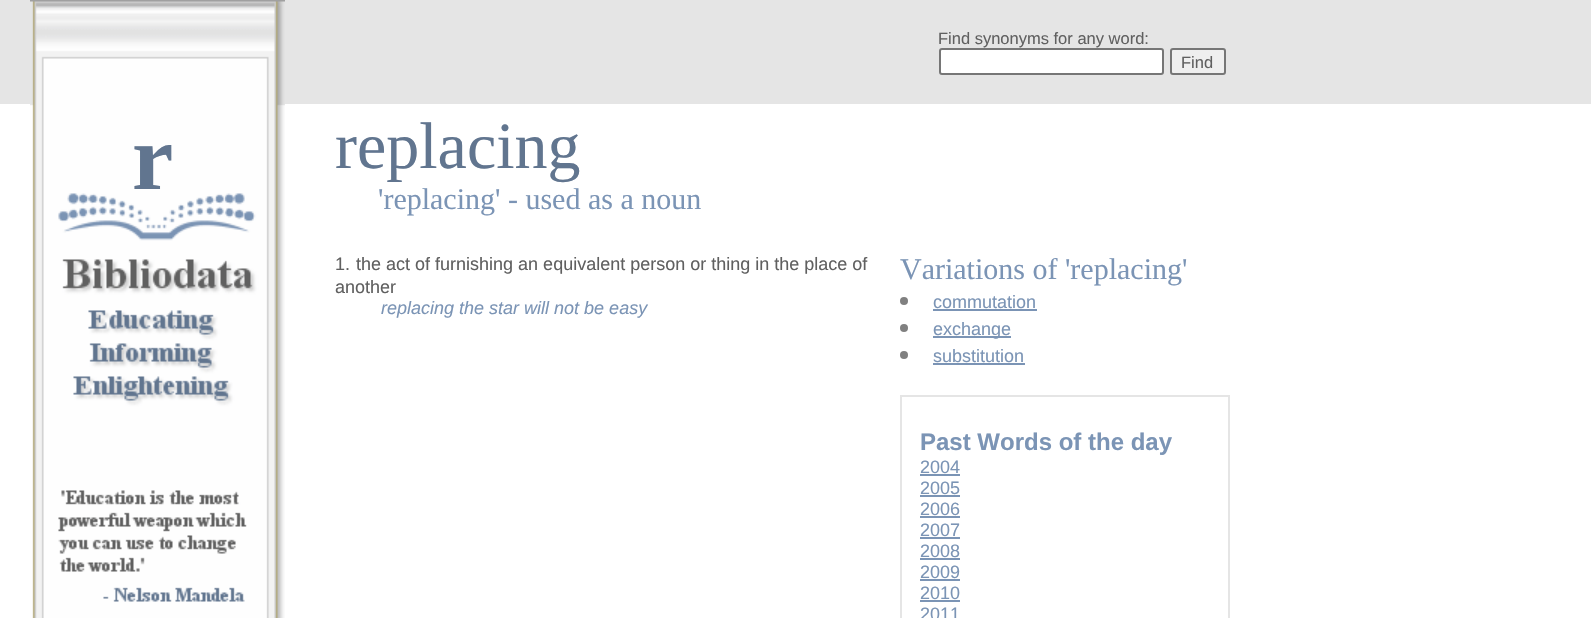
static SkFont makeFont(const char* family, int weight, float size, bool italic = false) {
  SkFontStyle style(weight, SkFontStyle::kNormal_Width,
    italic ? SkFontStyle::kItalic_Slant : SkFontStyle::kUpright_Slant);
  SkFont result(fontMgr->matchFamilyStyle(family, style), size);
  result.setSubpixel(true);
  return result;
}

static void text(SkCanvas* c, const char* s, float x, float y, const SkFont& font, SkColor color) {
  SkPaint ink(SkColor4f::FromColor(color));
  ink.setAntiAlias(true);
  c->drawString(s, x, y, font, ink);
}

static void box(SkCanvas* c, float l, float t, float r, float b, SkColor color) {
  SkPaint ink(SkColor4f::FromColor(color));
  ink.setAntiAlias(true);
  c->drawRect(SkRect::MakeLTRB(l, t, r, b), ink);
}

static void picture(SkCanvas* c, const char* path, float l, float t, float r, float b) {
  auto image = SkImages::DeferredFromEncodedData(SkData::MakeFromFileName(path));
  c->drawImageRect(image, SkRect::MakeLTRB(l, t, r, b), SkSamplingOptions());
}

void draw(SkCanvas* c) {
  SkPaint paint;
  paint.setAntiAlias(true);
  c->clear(0xffffffff);
  box(c, 0, 0, 1591, 104, 0xffe5e5e5);
  picture(c, "img_01.png", 30, 0, 285, 618);
  SkFont face1 = makeFont("Liberation Sans", 400, 16.5f);
  text(c, "Find synonyms for any word:", 938, 44, face1, 0xff606060);
  paint.setColor(0xffffffff);
  c->drawRoundRect(SkRect::MakeLTRB(940, 49, 1163, 74), 2, 2, paint);
  paint.setStyle(SkPaint::kStroke_Style);
  paint.setStrokeWidth(2);
  paint.setColor(0xff767676);
  c->drawRoundRect(SkRect::MakeLTRB(940, 49, 1163, 74), 2, 2, paint);
  paint.setStyle(SkPaint::kFill_Style);
  paint.setColor(0xffefefef);
  c->drawRoundRect(SkRect::MakeLTRB(1171, 49, 1225, 74), 2, 2, paint);
  paint.setStyle(SkPaint::kStroke_Style);
  paint.setColor(0xff767676);
  c->drawRoundRect(SkRect::MakeLTRB(1171, 49, 1225, 74), 2, 2, paint);
  text(c, "Find", 1181, 68, face1, 0xff606060);
  SkFont face2 = makeFont("Liberation Serif", 700, 93);
  text(c, "r", 132, 189, face2, 0xff61758f);
  SkFont face3 = makeFont("Liberation Serif", 400, 66);
  text(c, "replacing", 335, 168, face3, 0xff61758f);
  SkFont face4 = makeFont("Liberation Serif", 400, 30);
  text(c, "'replacing' - used as a noun", 378, 209, face4, 0xff7b94b5);
  SkFont face5 = makeFont("Liberation Sans", 400, 18);
  text(c, "1.", 335, 270, face5, 0xff606060);
  text(c, "the act of furnishing an equivalent person or thing in the place of", 356, 270, face5, 0xff606060);
  text(c, "another", 335, 293, face5, 0xff606060);
  SkFont face6 = makeFont("Liberation Sans", 400, 18, true);
  text(c, "replacing the star will not be easy", 381, 314, face6, 0xff7b94b5);
  text(c, "Variations of 'replacing'", 900, 279, face4, 0xff7b94b5);
  paint.setStyle(SkPaint::kFill_Style);
  paint.setColor(0xff808080);
  c->drawCircle(904, 301, 4, paint);
  text(c, "commutation", 933, 308, face5, 0xff7b94b5);
  box(c, 933, 309, 1037, 311, 0xff7b94b5);
  c->drawCircle(904, 328, 4, paint);
  box(c, 933, 336, 1011, 338, 0xff7b94b5);
  text(c, "exchange", 933, 335, face5, 0xff7b94b5);
  c->drawCircle(904, 355, 4, paint);
  text(c, "substitution", 933, 362, face5, 0xff7b94b5);
  box(c, 933, 363, 1025, 365, 0xff7b94b5);
  paint.setStyle(SkPaint::kStroke_Style);
  paint.setColor(0xffe5e5e5);
  c->drawRect(SkRect::MakeLTRB(901, 396, 1229, 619), paint);
  SkFont face7 = makeFont("Liberation Sans", 700, 24);
  text(c, "Past Words of the day", 920, 450, face7, 0xff7b94b5);
  text(c, "2004", 920, 473, face5, 0xff7b94b5);
  box(c, 920, 474, 960, 476, 0xff7b94b5);
  text(c, "2005", 920, 494, face5, 0xff7b94b5);
  box(c, 920, 495, 960, 497, 0xff7b94b5);
  text(c, "2006", 920, 515, face5, 0xff7b94b5);
  box(c, 920, 516, 960, 518, 0xff7b94b5);
  text(c, "2007", 920, 536, face5, 0xff7b94b5);
  box(c, 920, 537, 960, 539, 0xff7b94b5);
  text(c, "2008", 920, 557, face5, 0xff7b94b5);
  box(c, 920, 558, 960, 560, 0xff7b94b5);
  text(c, "2009", 920, 578, face5, 0xff7b94b5);
  box(c, 920, 579, 960, 581, 0xff7b94b5);
  text(c, "2010", 920, 599, face5, 0xff7b94b5);
  box(c, 920, 600, 960, 602, 0xff7b94b5);
  text(c, "2011", 920, 620, face5, 0xff7b94b5);
}
